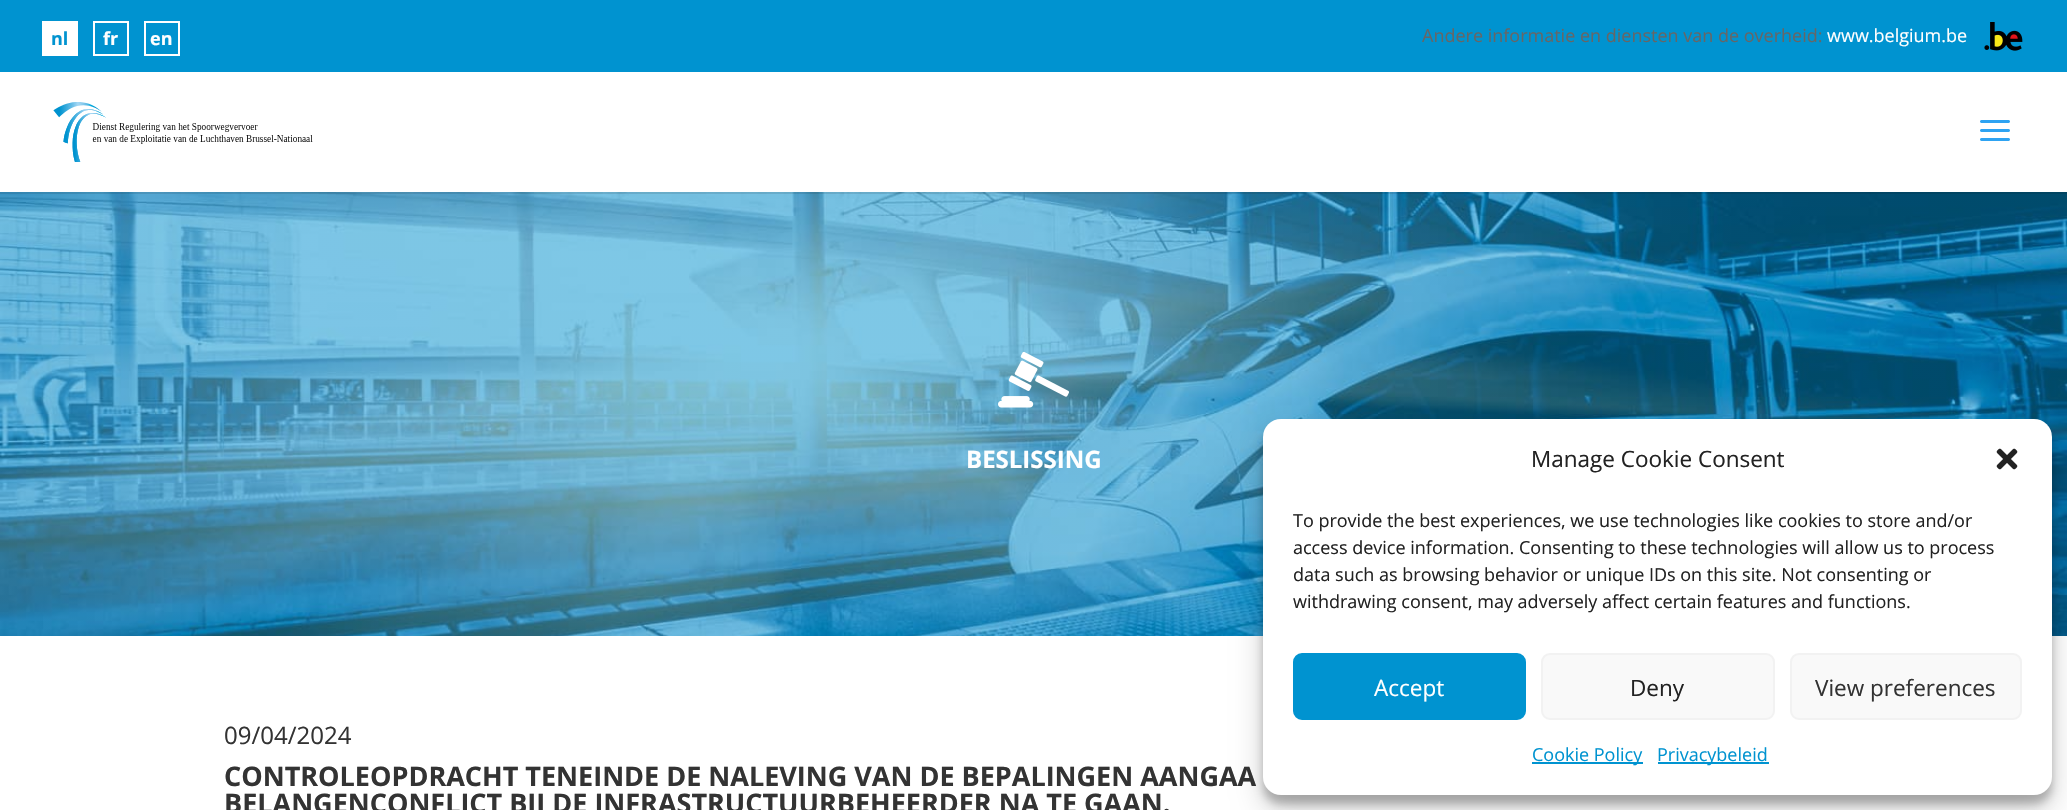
static SkFont makeFont(const char* family, int weight, float size, bool italic = false) {
  SkFontStyle style(weight, SkFontStyle::kNormal_Width,
    italic ? SkFontStyle::kItalic_Slant : SkFontStyle::kUpright_Slant);
  SkFont result(fontMgr->matchFamilyStyle(family, style), size);
  result.setSubpixel(true);
  return result;
}

static void text(SkCanvas* c, const char* s, float x, float y, const SkFont& font, SkColor color) {
  SkPaint ink(SkColor4f::FromColor(color));
  ink.setAntiAlias(true);
  c->drawString(s, x, y, font, ink);
}

static void box(SkCanvas* c, float l, float t, float r, float b, SkColor color) {
  SkPaint ink(SkColor4f::FromColor(color));
  ink.setAntiAlias(true);
  c->drawRect(SkRect::MakeLTRB(l, t, r, b), ink);
}

static void roundBox(SkCanvas* c, float l, float t, float r, float b, float radius, SkColor color) {
  SkPaint ink(SkColor4f::FromColor(color));
  ink.setAntiAlias(true);
  c->drawRoundRect(SkRect::MakeLTRB(l, t, r, b), radius, radius, ink);
}

static void picture(SkCanvas* c, const char* path, float l, float t, float r, float b) {
  auto image = SkImages::DeferredFromEncodedData(SkData::MakeFromFileName(path));
  c->drawImageRect(image, SkRect::MakeLTRB(l, t, r, b), SkSamplingOptions());
}

void draw(SkCanvas* c) {
  SkPaint paint;
  paint.setAntiAlias(true);
  c->clear(0xffffffff);
  box(c, 0, 0, 2067, 72, 0xff0093d0);
  box(c, 42, 21, 78, 56, 0xffffffff);
  SkFont face1 = makeFont("Open Sans", 700, 18);
  text(c, "nl", 51, 45, face1, 0xff0093d0);
  paint.setStyle(SkPaint::kStroke_Style);
  paint.setStrokeWidth(2);
  paint.setColor(0xffffffff);
  c->drawRect(SkRect::MakeLTRB(94, 22, 128, 55), paint);
  text(c, "fr", 103, 45, face1, 0xffffffff);
  c->drawRect(SkRect::MakeLTRB(145, 22, 179, 55), paint);
  text(c, "en", 150, 45, face1, 0xffffffff);
  SkFont face2 = makeFont("Open Sans", 400, 18);
  text(c, "Andere informatie en diensten van de overheid:", 1422, 42, face2, 0xff666666);
  text(c, "www.belgium.be", 1827, 42, face2, 0xffffffff);
  picture(c, "img_01.png", 1984, 22, 2023, 51);
  picture(c, "img_04.png", 0, 192, 2067, 636);
  box(c, 0, 192, 2067, 194, 0x1a000000);
  picture(c, "img_02.png", 53, 102, 313, 162);
  picture(c, "img_03.png", 1980, 120, 2010, 141);
  picture(c, "img_05.png", 998, 351, 1069, 408);
  SkFont face3 = makeFont("Open Sans", 700, 24);
  text(c, "BESLISSING", 966, 468, face3, 0xffffffff);
  SkFont face4 = makeFont("Open Sans", 400, 24);
  text(c, "09/04/2024", 224, 744, face4, 0xff333333);
  SkFont face5 = makeFont("Open Sans", 700, 27);
  text(c, "CONTROLEOPDRACHT TENEINDE DE NALEVING VAN DE BEPALINGEN AANGAA", 224, 786, face5, 0xff333333);
  text(c, "BELANGENCONFLICT BIJ DE INFRASTRUCTUURBEHEERDER NA TE GAAN.", 224, 813, face5, 0xff333333);
  paint.setStyle(SkPaint::kFill_Style);
  paint.setColor(0x3b000000);
  paint.setMaskFilter(SkMaskFilter::MakeBlur(kNormal_SkBlurStyle, 4.5f));
  c->drawRoundRect(SkRect::MakeLTRB(1263, 428, 2052, 804), 18, 18, paint);
  paint.setMaskFilter(nullptr);
  paint.setColor(0x30000000);
  paint.setMaskFilter(SkMaskFilter::MakeBlur(kNormal_SkBlurStyle, 15));
  c->drawRoundRect(SkRect::MakeLTRB(1263, 434, 2052, 810), 18, 18, paint);
  paint.setMaskFilter(nullptr);
  roundBox(c, 1263, 419, 2052, 795, 18, 0xffffffff);
  SkFont face6 = makeFont("Open Sans", 400, 22.5f);
  text(c, "Manage Cookie Consent", 1531, 467, face6, 0xff222222);
  picture(c, "img_06.png", 1996, 448, 2018, 470);
  text(c, "To provide the best experiences, we use technologies like cookies to store and/or", 1293, 527, face2, 0xff222222);
  text(c, "access device information. Consenting to these technologies will allow us to process", 1293, 554, face2, 0xff222222);
  text(c, "data such as browsing behavior or unique IDs on this site. Not consenting or", 1293, 581, face2, 0xff222222);
  text(c, "withdrawing consent, may adversely affect certain features and functions.", 1293, 608, face2, 0xff222222);
  paint.setColor(0xff0093d0);
  c->drawRoundRect(SkRect::MakeLTRB(1294, 654, 1525, 719), 8, 8, paint);
  paint.setStyle(SkPaint::kStroke_Style);
  c->drawRoundRect(SkRect::MakeLTRB(1294, 654, 1525, 719), 8, 8, paint);
  text(c, "Accept", 1374, 696, face6, 0xffffffff);
  paint.setStyle(SkPaint::kFill_Style);
  paint.setColor(0xfff9f9f9);
  c->drawRoundRect(SkRect::MakeLTRB(1542, 654, 1774, 719), 8, 8, paint);
  paint.setStyle(SkPaint::kStroke_Style);
  paint.setColor(0xfff2f2f2);
  c->drawRoundRect(SkRect::MakeLTRB(1542, 654, 1774, 719), 8, 8, paint);
  text(c, "Deny", 1630, 696, face6, 0xff222222);
  paint.setStyle(SkPaint::kFill_Style);
  paint.setColor(0xfff9f9f9);
  c->drawRoundRect(SkRect::MakeLTRB(1791, 654, 2021, 719), 8, 8, paint);
  paint.setStyle(SkPaint::kStroke_Style);
  paint.setColor(0xfff2f2f2);
  c->drawRoundRect(SkRect::MakeLTRB(1791, 654, 2021, 719), 8, 8, paint);
  text(c, "View preferences", 1815, 696, face6, 0xff333333);
  box(c, 1532, 762, 1643, 764, 0xff0093d0);
  text(c, "Cookie Policy", 1532, 761, face2, 0xff0093d0);
  box(c, 1658, 762, 1769, 764, 0xff0093d0);
  text(c, "Privacybeleid", 1657, 761, face2, 0xff0093d0);
}
